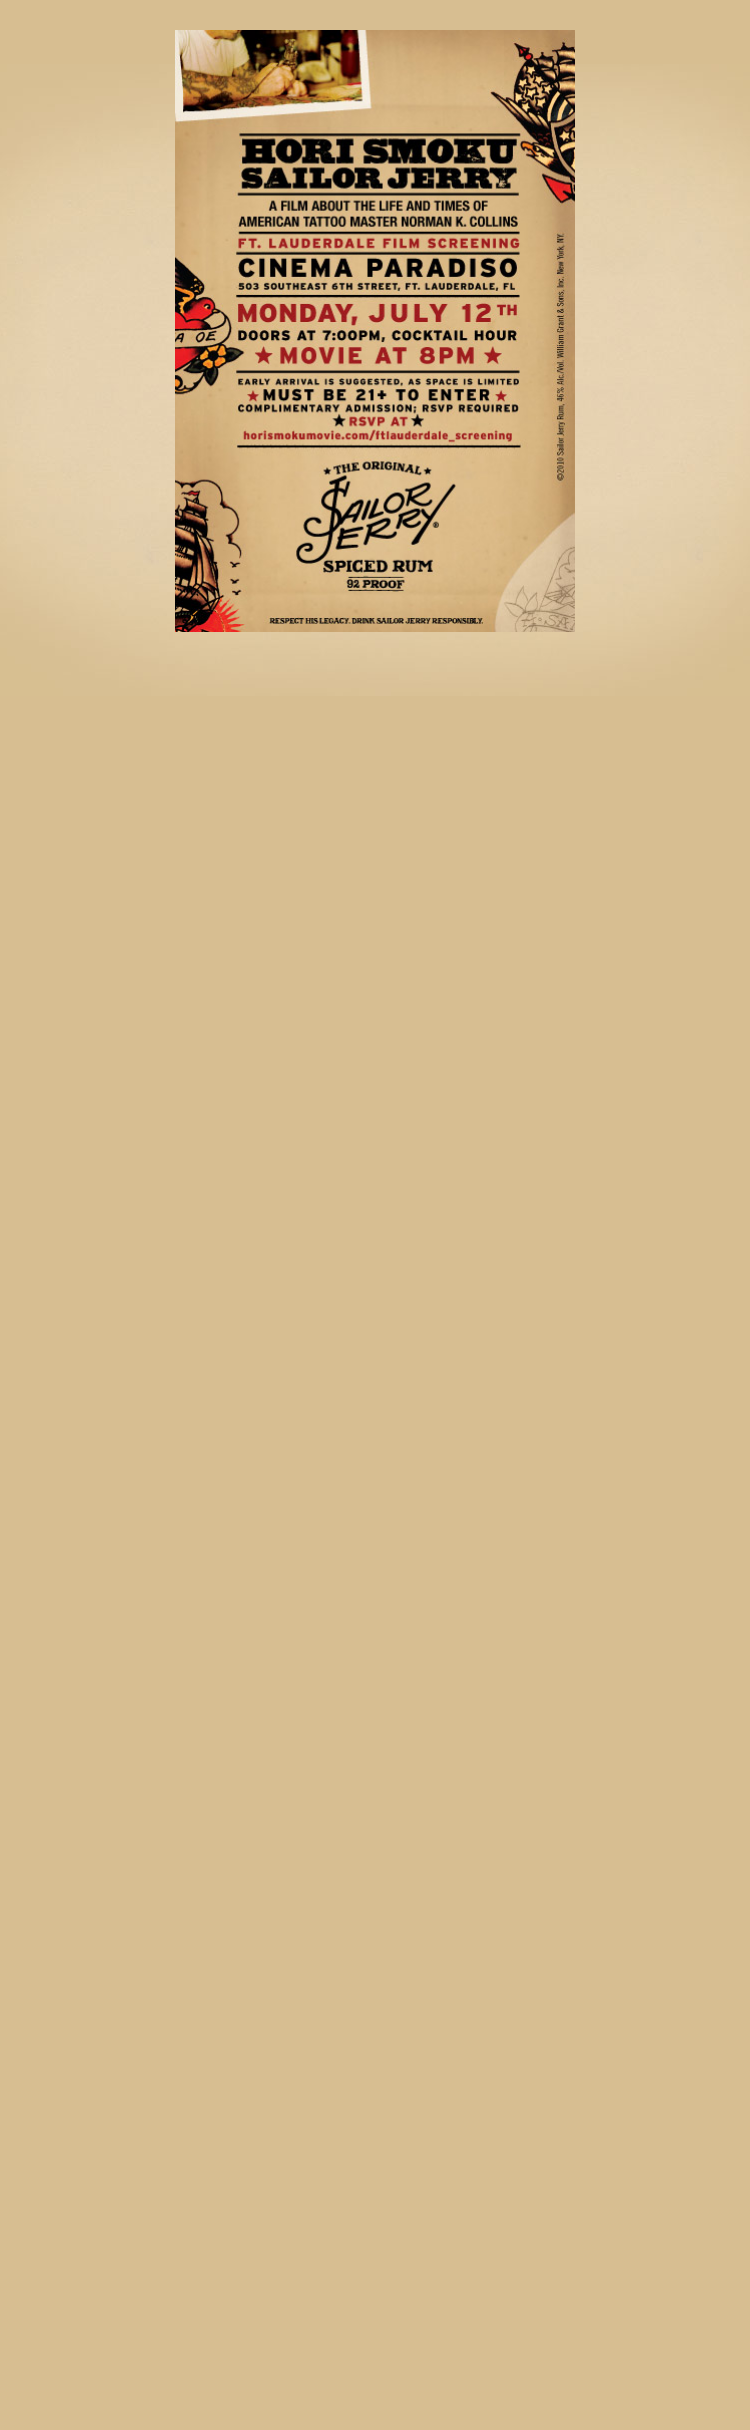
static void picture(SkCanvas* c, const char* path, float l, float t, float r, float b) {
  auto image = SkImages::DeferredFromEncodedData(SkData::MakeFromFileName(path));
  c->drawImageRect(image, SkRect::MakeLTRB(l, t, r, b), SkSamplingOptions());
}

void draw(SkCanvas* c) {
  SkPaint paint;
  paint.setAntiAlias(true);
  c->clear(0xffd7be91);
  picture(c, "img_01.png", 0, 64, 750, 696);
  picture(c, "img_02.png", 175, 30, 575, 632);
}
